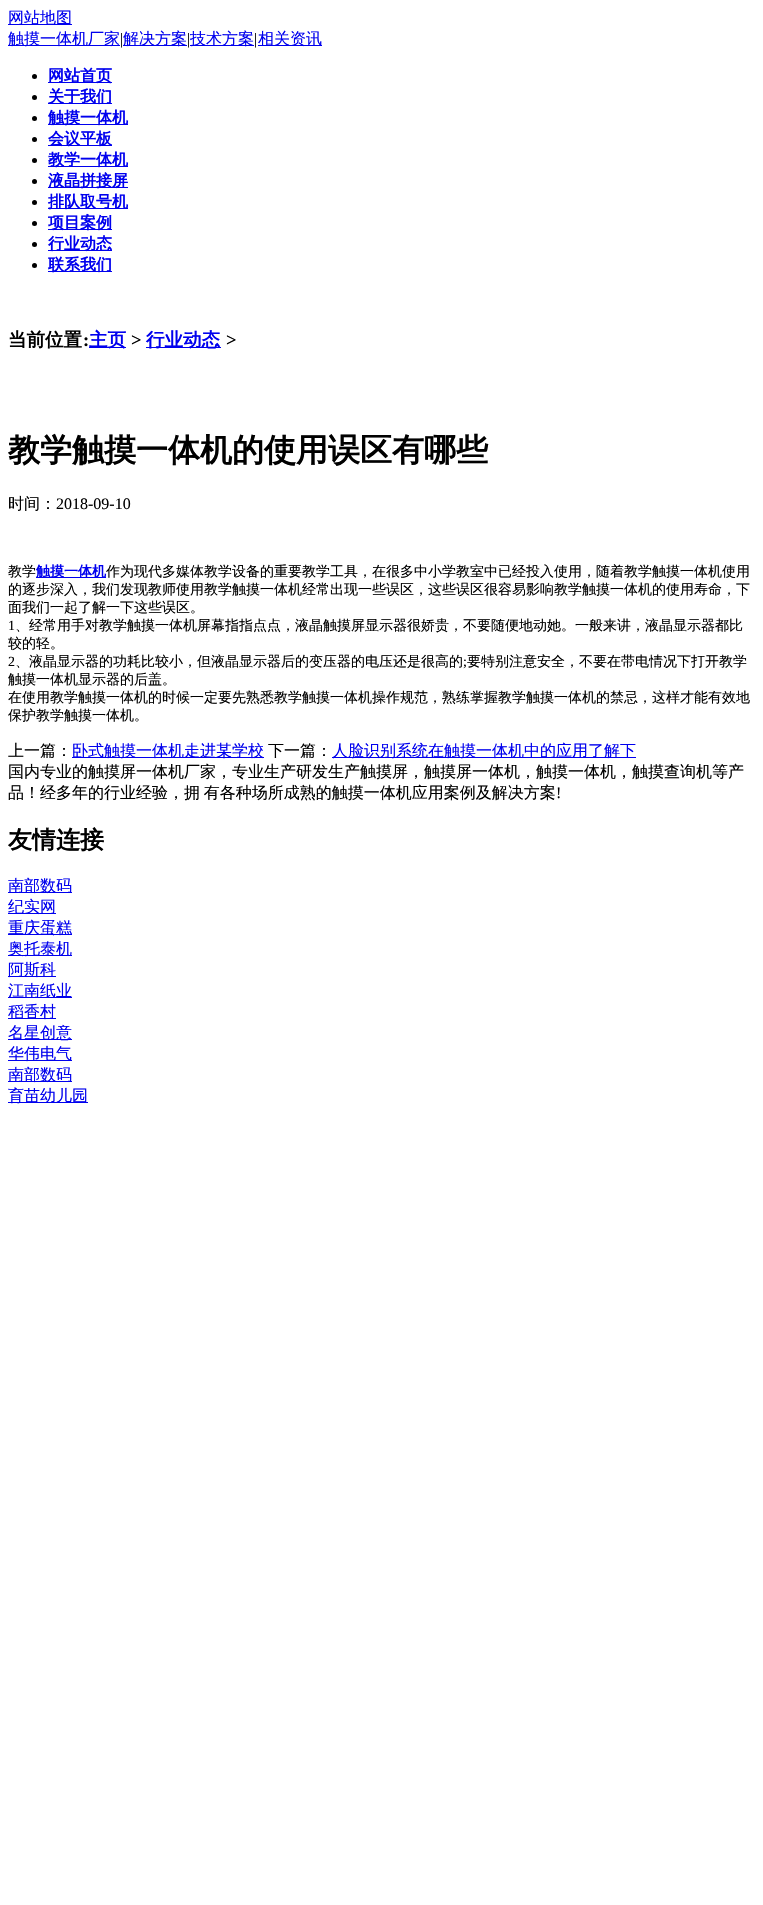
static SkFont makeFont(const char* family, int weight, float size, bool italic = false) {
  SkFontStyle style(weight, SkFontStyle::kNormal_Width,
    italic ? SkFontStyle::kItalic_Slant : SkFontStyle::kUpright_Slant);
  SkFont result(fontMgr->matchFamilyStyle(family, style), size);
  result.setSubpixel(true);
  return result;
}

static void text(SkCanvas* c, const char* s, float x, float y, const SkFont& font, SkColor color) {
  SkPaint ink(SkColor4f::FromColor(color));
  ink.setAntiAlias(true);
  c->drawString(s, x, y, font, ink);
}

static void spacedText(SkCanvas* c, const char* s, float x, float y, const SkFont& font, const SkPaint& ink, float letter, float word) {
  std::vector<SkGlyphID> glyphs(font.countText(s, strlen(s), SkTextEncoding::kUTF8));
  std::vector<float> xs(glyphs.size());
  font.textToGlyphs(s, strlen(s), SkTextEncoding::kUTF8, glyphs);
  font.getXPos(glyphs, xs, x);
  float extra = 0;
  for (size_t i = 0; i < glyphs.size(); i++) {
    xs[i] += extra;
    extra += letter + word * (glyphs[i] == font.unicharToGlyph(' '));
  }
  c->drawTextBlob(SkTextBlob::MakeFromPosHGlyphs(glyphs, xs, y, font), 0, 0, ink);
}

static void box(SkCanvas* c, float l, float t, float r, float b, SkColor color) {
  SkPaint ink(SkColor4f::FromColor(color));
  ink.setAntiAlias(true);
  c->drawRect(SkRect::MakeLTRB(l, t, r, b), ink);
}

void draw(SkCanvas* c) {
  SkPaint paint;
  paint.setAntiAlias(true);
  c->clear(0xffffffff);
  box(c, 8, 24, 72, 25, 0xff0000ee);
  SkFont face1 = makeFont("WenQuanYi Zen Hei", 500, 16);
  text(c, "网站地图", 8, 23, face1, 0xff0000ee);
  box(c, 8, 45, 120, 46, 0xff0000ee);
  text(c, "触摸一体机厂家", 8, 44, face1, 0xff0000ee);
  SkFont face2 = makeFont("Liberation Serif", 400, 16);
  text(c, "|", 120, 44, face2, 0xff000000);
  box(c, 123, 45, 187, 46, 0xff0000ee);
  text(c, "解决方案", 123, 44, face1, 0xff0000ee);
  text(c, "|", 187, 44, face2, 0xff000000);
  box(c, 190, 45, 254, 46, 0xff0000ee);
  text(c, "技术方案", 190, 44, face1, 0xff0000ee);
  text(c, "|", 254, 44, face2, 0xff000000);
  box(c, 258, 45, 322, 46, 0xff0000ee);
  text(c, "相关资讯", 258, 44, face1, 0xff0000ee);
  paint.setColor(0xff000000);
  c->drawCircle(34.5f, 76.5f, 2.5f, paint);
  box(c, 48, 82, 112, 83, 0xff0000ee);
  SkFont face3 = makeFont("WenQuanYi Zen Hei", 700, 16);
  text(c, "网站首页", 48, 81, face3, 0xff0000ee);
  c->drawCircle(34.5f, 97.5f, 2.5f, paint);
  box(c, 48, 103, 112, 104, 0xff0000ee);
  text(c, "关于我们", 48, 102, face3, 0xff0000ee);
  c->drawCircle(34.5f, 118.5f, 2.5f, paint);
  box(c, 48, 124, 128, 125, 0xff0000ee);
  text(c, "触摸一体机", 48, 123, face3, 0xff0000ee);
  c->drawCircle(34.5f, 139.5f, 2.5f, paint);
  box(c, 48, 145, 112, 146, 0xff0000ee);
  text(c, "会议平板", 48, 144, face3, 0xff0000ee);
  c->drawCircle(34.5f, 160.5f, 2.5f, paint);
  box(c, 48, 166, 128, 167, 0xff0000ee);
  text(c, "教学一体机", 48, 165, face3, 0xff0000ee);
  c->drawCircle(34.5f, 181.5f, 2.5f, paint);
  box(c, 48, 187, 128, 188, 0xff0000ee);
  text(c, "液晶拼接屏", 48, 186, face3, 0xff0000ee);
  c->drawCircle(34.5f, 202.5f, 2.5f, paint);
  box(c, 48, 208, 128, 209, 0xff0000ee);
  text(c, "排队取号机", 48, 207, face3, 0xff0000ee);
  c->drawCircle(34.5f, 223.5f, 2.5f, paint);
  box(c, 48, 229, 112, 230, 0xff0000ee);
  text(c, "项目案例", 48, 228, face3, 0xff0000ee);
  c->drawCircle(34.5f, 244.5f, 2.5f, paint);
  box(c, 48, 250, 112, 251, 0xff0000ee);
  text(c, "行业动态", 48, 249, face3, 0xff0000ee);
  c->drawCircle(34.5f, 265.5f, 2.5f, paint);
  box(c, 48, 271, 112, 272, 0xff0000ee);
  text(c, "联系我们", 48, 270, face3, 0xff0000ee);
  SkFont face4 = makeFont("WenQuanYi Zen Hei", 700, 18.5f);
  text(c, "当前位置", 8, 346, face4, 0xff000000);
  SkFont face5 = makeFont("Liberation Serif", 700, 18.5f);
  text(c, ":", 83, 346, face5, 0xff000000);
  box(c, 89, 347, 126, 348, 0xff0000ee);
  text(c, "主页", 89, 346, face4, 0xff0000ee);
  text(c, ">", 131, 346, face5, 0xff000000);
  box(c, 146, 347, 221, 348, 0xff0000ee);
  text(c, "行业动态", 146, 346, face4, 0xff0000ee);
  text(c, ">", 226, 346, face5, 0xff000000);
  SkFont face6 = makeFont("WenQuanYi Zen Hei", 700, 32);
  text(c, "教学触摸一体机的使用误区有哪些", 8, 461, face6, 0xff000000);
  text(c, "时间：", 8, 509, face1, 0xff000000);
  text(c, "2018-09-10", 56, 509, face2, 0xff000000);
  SkFont face7 = makeFont("WenQuanYi Zen Hei", 500, 14);
  text(c, "教学", 8, 576, face7, 0xff000000);
  box(c, 36, 577, 106, 578, 0xff0000ee);
  SkFont face8 = makeFont("WenQuanYi Zen Hei", 700, 14);
  text(c, "触摸一体机", 36, 576, face8, 0xff0000ee);
  text(c, "作为现代多媒体教学设备的重要教学工具，在很多中小学教室中已经投入使用，随着教学触摸一体机使用", 106, 576, face7, 0xff000000);
  text(c, "的逐步深入，我们发现教师使用教学触摸一体机经常出现一些误区，这些误区很容易影响教学触摸一体机的使用寿命，下", 8, 594, face7, 0xff000000);
  text(c, "面我们一起了解一下这些误区。", 8, 612, face7, 0xff000000);
  SkFont face9 = makeFont("Liberation Serif", 400, 14);
  text(c, "1", 8, 630, face9, 0xff000000);
  text(c, "、经常用手对教学触摸一体机屏幕指指点点，液晶触摸屏显示器很娇贵，不要随便地动她。一般来讲，液晶显示器都比", 15, 630, face7, 0xff000000);
  text(c, "较的轻。", 8, 648, face7, 0xff000000);
  text(c, "2", 8, 666, face9, 0xff000000);
  text(c, "、液晶显示器的功耗比较小，但液晶显示器后的变压器的电压还是很高的", 15, 666, face7, 0xff000000);
  text(c, ";", 463, 666, face9, 0xff000000);
  text(c, "要特别注意安全，不要在带电情况下打开教学", 467, 666, face7, 0xff000000);
  text(c, "触摸一体机显示器的后盖。", 8, 684, face7, 0xff000000);
  text(c, "在使用教学触摸一体机的时候一定要先熟悉教学触摸一体机操作规范，熟练掌握教学触摸一体机的禁忌，这样才能有效地", 8, 702, face7, 0xff000000);
  text(c, "保护教学触摸一体机。", 8, 720, face7, 0xff000000);
  text(c, "上一篇：", 8, 756, face1, 0xff000000);
  box(c, 72, 757, 264, 758, 0xff0000ee);
  text(c, "卧式触摸一体机走进某学校", 72, 756, face1, 0xff0000ee);
  text(c, "下一篇：", 268, 756, face1, 0xff000000);
  box(c, 332, 757, 636, 758, 0xff0000ee);
  text(c, "人脸识别系统在触摸一体机中的应用了解下", 332, 756, face1, 0xff0000ee);
  text(c, "国内专业的触摸屏一体机厂家，专业生产研发生产触摸屏，触摸屏一体机，触摸一体机，触摸查询机等产", 8, 777, face1, 0xff000000);
  spacedText(c, "品！经多年的行业经验，拥 有各种场所成熟的触摸一体机应用案例及解决方案", 8, 798, face1, paint, 0, -1);
  text(c, "!", 556, 798, face2, 0xff000000);
  SkFont face10 = makeFont("WenQuanYi Zen Hei", 700, 24);
  text(c, "友情连接", 8, 848, face10, 0xff000000);
  box(c, 8, 892, 72, 893, 0xff0000ee);
  text(c, "南部数码", 8, 891, face1, 0xff0000ee);
  box(c, 8, 913, 56, 914, 0xff0000ee);
  text(c, "纪实网", 8, 912, face1, 0xff0000ee);
  box(c, 8, 934, 72, 935, 0xff0000ee);
  text(c, "重庆蛋糕", 8, 933, face1, 0xff0000ee);
  box(c, 8, 955, 72, 956, 0xff0000ee);
  text(c, "奥托泰机", 8, 954, face1, 0xff0000ee);
  box(c, 8, 976, 56, 977, 0xff0000ee);
  text(c, "阿斯科", 8, 975, face1, 0xff0000ee);
  box(c, 8, 997, 72, 998, 0xff0000ee);
  text(c, "江南纸业", 8, 996, face1, 0xff0000ee);
  box(c, 8, 1018, 56, 1019, 0xff0000ee);
  text(c, "稻香村", 8, 1017, face1, 0xff0000ee);
  box(c, 8, 1039, 72, 1040, 0xff0000ee);
  text(c, "名星创意", 8, 1038, face1, 0xff0000ee);
  box(c, 8, 1060, 72, 1061, 0xff0000ee);
  text(c, "华伟电气", 8, 1059, face1, 0xff0000ee);
  box(c, 8, 1081, 72, 1082, 0xff0000ee);
  text(c, "南部数码", 8, 1080, face1, 0xff0000ee);
  box(c, 8, 1102, 88, 1103, 0xff0000ee);
  text(c, "育苗幼儿园", 8, 1101, face1, 0xff0000ee);
}
